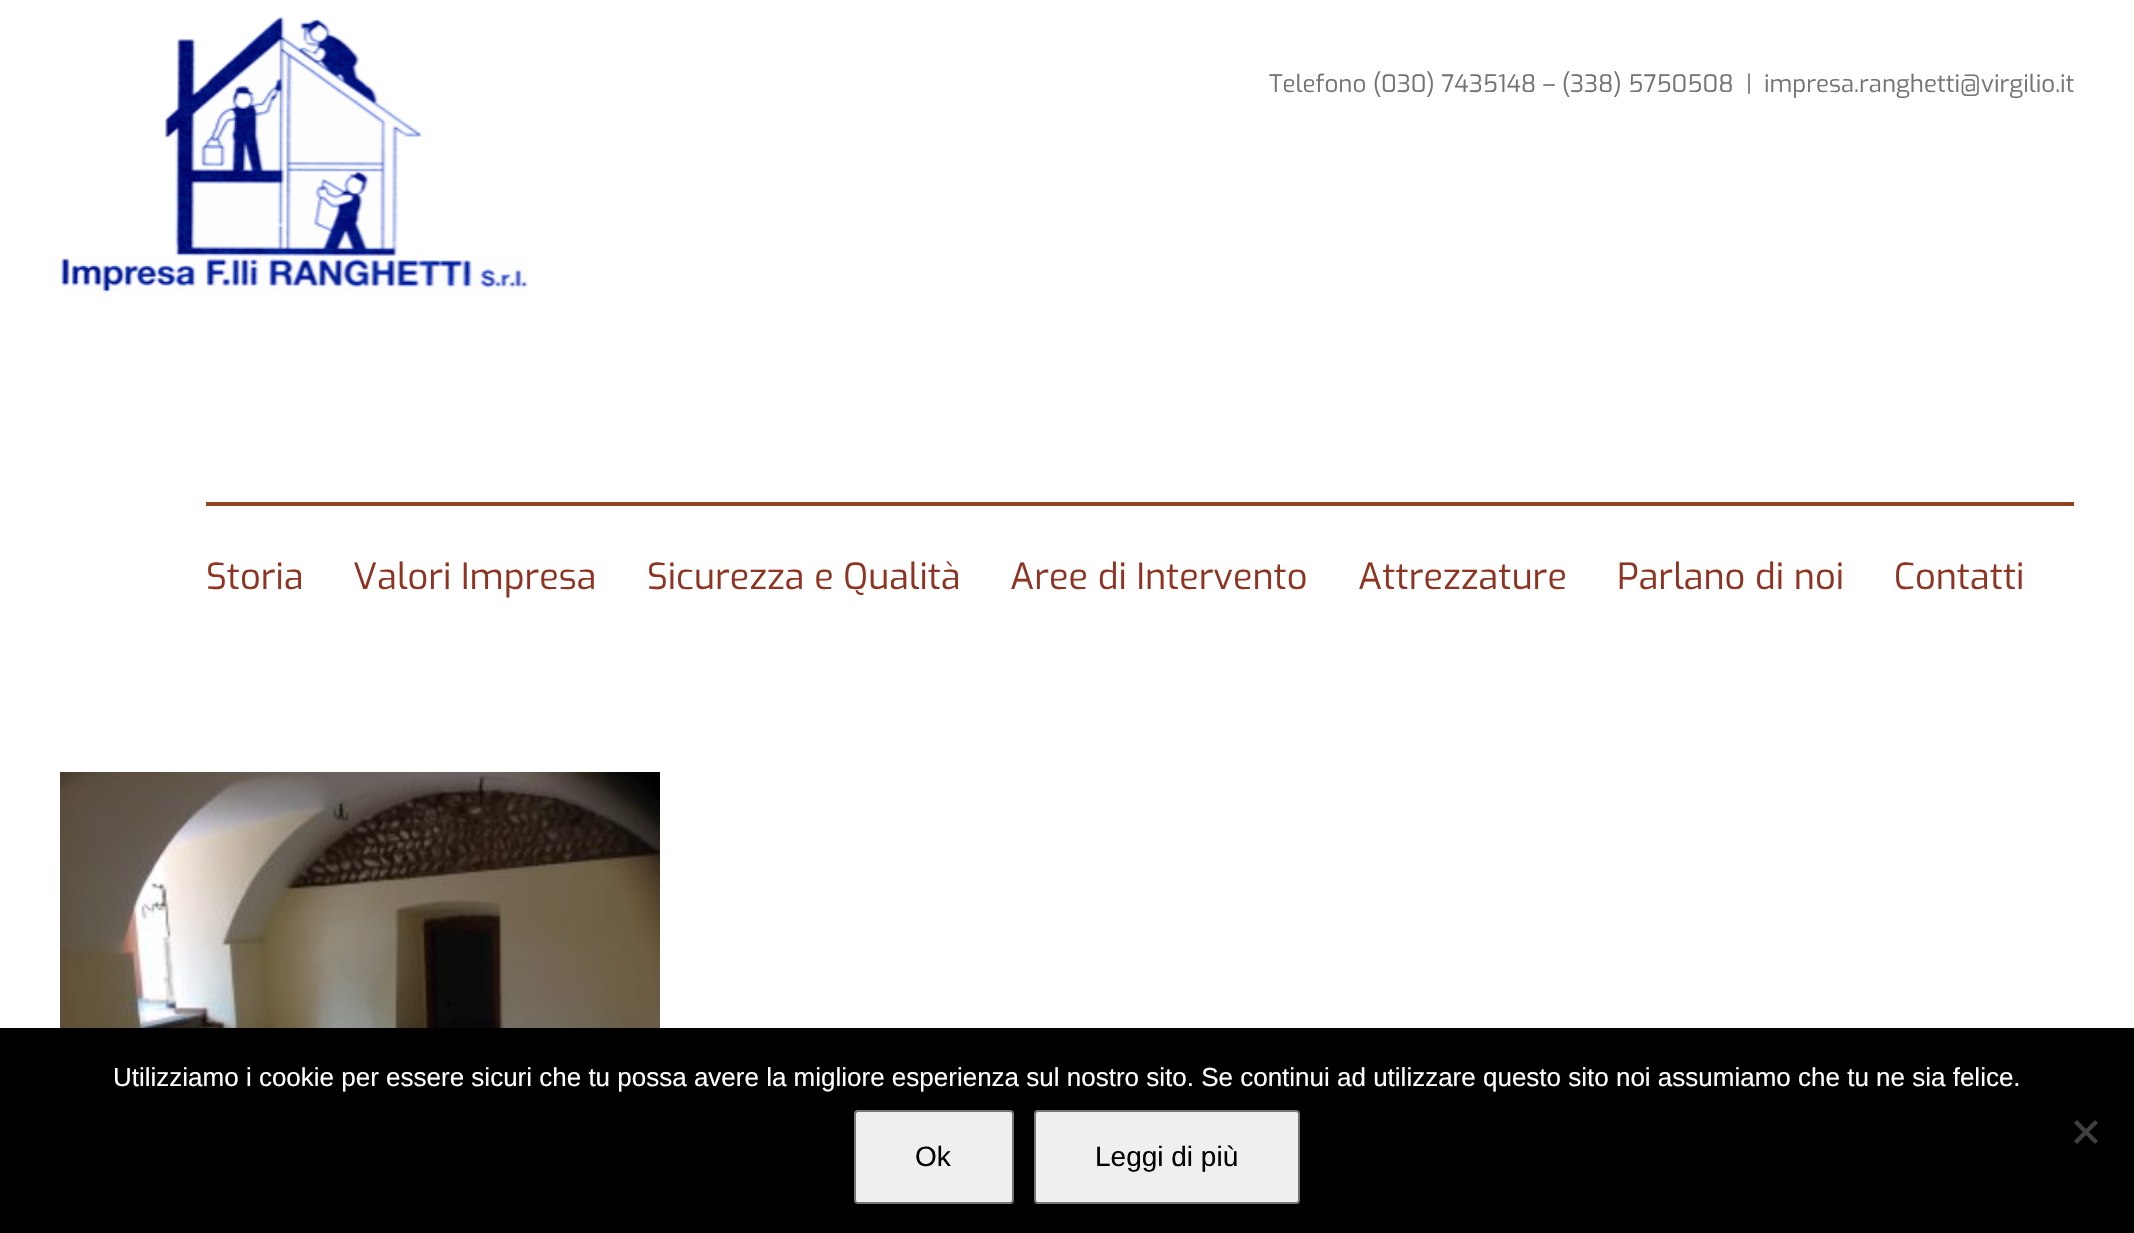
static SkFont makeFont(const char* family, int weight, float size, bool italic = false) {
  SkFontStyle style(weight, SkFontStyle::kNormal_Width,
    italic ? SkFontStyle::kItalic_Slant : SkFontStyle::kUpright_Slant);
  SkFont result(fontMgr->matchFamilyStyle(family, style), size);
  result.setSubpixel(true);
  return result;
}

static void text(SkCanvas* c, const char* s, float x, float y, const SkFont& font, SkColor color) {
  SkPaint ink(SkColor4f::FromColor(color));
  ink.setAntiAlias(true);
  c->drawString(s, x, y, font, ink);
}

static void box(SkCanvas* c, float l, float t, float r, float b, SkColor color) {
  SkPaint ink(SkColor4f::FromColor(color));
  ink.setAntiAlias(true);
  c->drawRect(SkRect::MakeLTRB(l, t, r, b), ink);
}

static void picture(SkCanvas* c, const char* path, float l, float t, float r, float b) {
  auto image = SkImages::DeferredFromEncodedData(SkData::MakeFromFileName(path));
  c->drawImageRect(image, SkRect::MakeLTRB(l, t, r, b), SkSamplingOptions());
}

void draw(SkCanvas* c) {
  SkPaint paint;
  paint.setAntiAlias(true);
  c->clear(0xffffffff);
  SkFont face1 = makeFont("Exo", 400, 24);
  text(c, "Telefono (030) 7435148 – (338) 5750508", 1269, 92, face1, 0xff747474);
  text(c, "|", 1746, 92, face1, 0xff747474);
  text(c, "impresa.ranghetti@virgilio.it", 1764, 92, face1, 0xff747474);
  picture(c, "img_01.png", 61, 16, 528, 293);
  box(c, 206, 502, 2074, 506, 0xff8f4322);
  SkFont face2 = makeFont("Exo", 400, 36);
  text(c, "Storia", 206, 589, face2, 0xff8f3422);
  text(c, "Valori Impresa", 353, 589, face2, 0xff8f3422);
  text(c, "Sicurezza e Qualità", 647, 589, face2, 0xff8f3422);
  text(c, "Aree di Intervento", 1010, 589, face2, 0xff8f3422);
  text(c, "Attrezzature", 1358, 589, face2, 0xff8f3422);
  text(c, "Parlano di noi", 1617, 589, face2, 0xff8f3422);
  text(c, "Contatti", 1894, 589, face2, 0xff8f3422);
  picture(c, "img_02.png", 60, 772, 660, 1028);
  box(c, 0, 1028, 2134, 1233, 0xff000000);
  SkFont face3 = makeFont("Liberation Sans", 400, 26);
  text(c, "Utilizziamo i cookie per essere sicuri che tu possa avere la migliore esperienza sul nostro sito. Se continui ad utilizzare questo sito noi assumiamo che tu ne sia felice.", 113, 1086, face3, 0xffffffff);
  paint.setColor(0xff404040);
  c->drawPath(SkPathBuilder().moveTo(2095, 1120).lineTo(2098, 1123).lineTo(2077, 1144).lineTo(2074, 1141).close().detach(), paint);
  c->drawPath(SkPathBuilder().moveTo(2074, 1123).lineTo(2077, 1120).lineTo(2098, 1141).lineTo(2095, 1144).close().detach(), paint);
  paint.setColor(0xffefefef);
  c->drawRoundRect(SkRect::MakeLTRB(855, 1111, 1013, 1203), 3, 3, paint);
  paint.setStyle(SkPaint::kStroke_Style);
  paint.setStrokeWidth(2);
  paint.setColor(0xff767676);
  c->drawRoundRect(SkRect::MakeLTRB(855, 1111, 1013, 1203), 3, 3, paint);
  SkFont face4 = makeFont("Liberation Sans", 400, 28);
  text(c, "Ok", 915, 1166, face4, 0xff000000);
  paint.setStyle(SkPaint::kFill_Style);
  paint.setColor(0xffefefef);
  c->drawRoundRect(SkRect::MakeLTRB(1035, 1111, 1299, 1203), 3, 3, paint);
  paint.setStyle(SkPaint::kStroke_Style);
  paint.setColor(0xff767676);
  c->drawRoundRect(SkRect::MakeLTRB(1035, 1111, 1299, 1203), 3, 3, paint);
  text(c, "Leggi di più", 1095, 1166, face4, 0xff000000);
}
